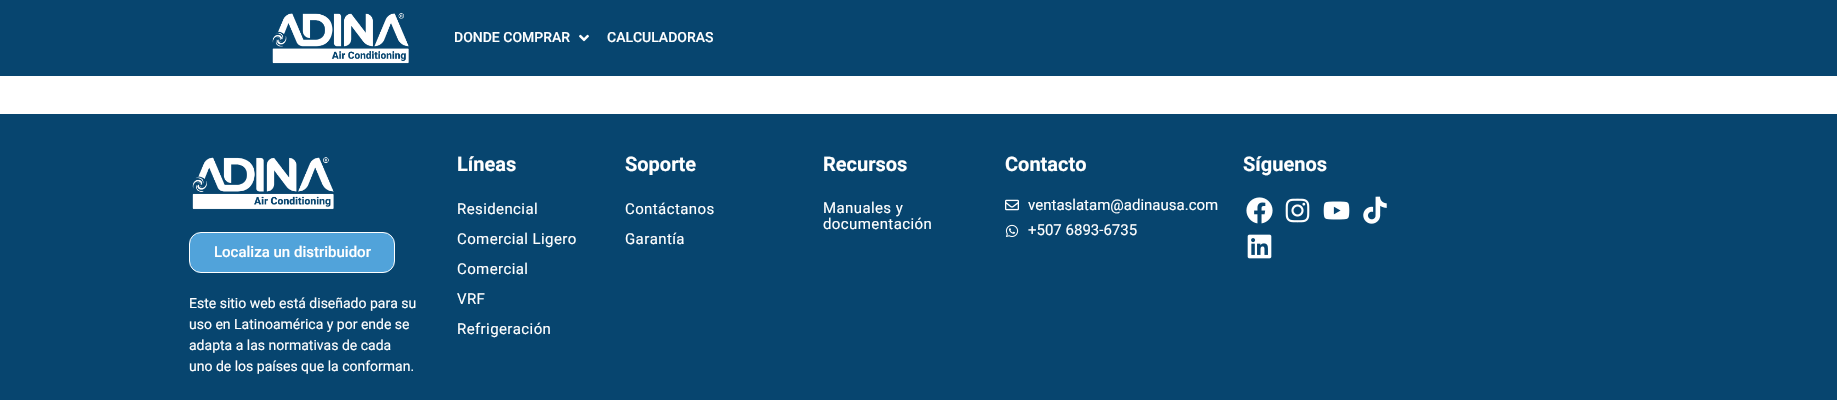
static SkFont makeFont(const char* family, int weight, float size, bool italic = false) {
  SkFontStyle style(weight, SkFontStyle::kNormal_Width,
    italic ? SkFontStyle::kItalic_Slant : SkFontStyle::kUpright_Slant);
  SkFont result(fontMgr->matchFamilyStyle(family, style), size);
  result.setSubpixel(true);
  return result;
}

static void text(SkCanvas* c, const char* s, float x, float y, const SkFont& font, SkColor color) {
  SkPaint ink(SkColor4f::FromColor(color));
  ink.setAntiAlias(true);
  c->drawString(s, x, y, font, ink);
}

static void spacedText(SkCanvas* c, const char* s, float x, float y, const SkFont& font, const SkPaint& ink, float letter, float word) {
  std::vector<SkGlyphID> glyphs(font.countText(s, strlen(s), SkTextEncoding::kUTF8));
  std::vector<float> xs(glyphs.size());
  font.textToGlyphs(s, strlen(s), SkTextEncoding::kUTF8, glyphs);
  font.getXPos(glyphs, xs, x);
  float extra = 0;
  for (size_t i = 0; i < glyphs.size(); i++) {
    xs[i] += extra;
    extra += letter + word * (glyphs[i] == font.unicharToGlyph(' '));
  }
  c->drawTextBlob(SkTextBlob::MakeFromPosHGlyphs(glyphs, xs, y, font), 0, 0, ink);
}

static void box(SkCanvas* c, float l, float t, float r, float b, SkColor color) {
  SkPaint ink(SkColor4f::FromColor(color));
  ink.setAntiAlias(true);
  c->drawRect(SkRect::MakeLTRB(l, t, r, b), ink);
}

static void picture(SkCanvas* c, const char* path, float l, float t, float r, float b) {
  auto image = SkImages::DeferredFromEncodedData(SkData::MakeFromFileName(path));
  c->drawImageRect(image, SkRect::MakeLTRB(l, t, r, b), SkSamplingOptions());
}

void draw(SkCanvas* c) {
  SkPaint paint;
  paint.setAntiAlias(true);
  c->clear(0xffffffff);
  box(c, 0, 0, 1837, 76, 0xff07456f);
  picture(c, "img_01.png", 272, 13, 409, 64);
  SkFont face1 = makeFont("Roboto", 500, 14);
  text(c, "DONDE COMPRAR", 454, 42, face1, 0xffffffff);
  picture(c, "img_02.png", 579, 34, 589, 42);
  text(c, "CALCULADORAS", 607, 42, face1, 0xffffffff);
  box(c, 0, 114, 1837, 400, 0xff07456f);
  SkFont face2 = makeFont("Roboto", 700, 20);
  text(c, "Líneas", 457, 171, face2, 0xffffffff);
  SkFont face3 = makeFont("Roboto", 400, 15);
  paint.setColor(0xffffffff);
  spacedText(c, "Residencial", 457, 214, face3, paint, 0.4f, 0);
  spacedText(c, "Comercial Ligero", 457, 244, face3, paint, 0.4f, 0);
  spacedText(c, "Comercial", 457, 274, face3, paint, 0.4f, 0);
  spacedText(c, "VRF", 457, 304, face3, paint, 0.4f, 0);
  spacedText(c, "Refrigeración", 457, 334, face3, paint, 0.4f, 0);
  text(c, "Soporte", 625, 171, face2, 0xffffffff);
  spacedText(c, "Contáctanos", 625, 214, face3, paint, 0.4f, 0);
  spacedText(c, "Garantía", 625, 244, face3, paint, 0.4f, 0);
  text(c, "Recursos", 823, 171, face2, 0xffffffff);
  spacedText(c, "Manuales y", 823, 213, face3, paint, 0.4f, 0);
  spacedText(c, "documentación", 823, 229, face3, paint, 0.4f, 0);
  text(c, "Contacto", 1005, 171, face2, 0xffffffff);
  picture(c, "img_03.png", 1005, 199, 1019, 211);
  text(c, "ventaslatam@adinausa.com", 1028, 210, face3, 0xffffffff);
  picture(c, "img_04.png", 1005, 224, 1019, 237);
  text(c, "+507 6893-6735", 1028, 235, face3, 0xffffffff);
  text(c, "Síguenos", 1243, 171, face2, 0xffffffff);
  picture(c, "img_05.png", 1246, 197, 1273, 224);
  picture(c, "img_06.png", 1285, 198, 1310, 223);
  picture(c, "img_07.png", 1323, 201, 1350, 220);
  picture(c, "img_08.png", 1363, 196, 1387, 224);
  picture(c, "img_09.png", 1247, 234, 1272, 259);
  picture(c, "img_10.png", 192, 157, 334, 210);
  paint.setColor(0xff51a3da);
  c->drawRoundRect(SkRect::MakeLTRB(189.5f, 232.5f, 394.5f, 272.5f), 11.5f, 11.5f, paint);
  paint.setStyle(SkPaint::kStroke_Style);
  paint.setStrokeWidth(1);
  paint.setColor(0xffffffff);
  c->drawRoundRect(SkRect::MakeLTRB(189.5f, 232.5f, 394.5f, 272.5f), 11.5f, 11.5f, paint);
  SkFont face4 = makeFont("Roboto", 500, 15);
  text(c, "Localiza un distribuidor", 214, 257, face4, 0xffffffff);
  SkFont face5 = makeFont("Roboto", 400, 14);
  text(c, "Este sitio web está diseñado para su", 189, 308, face5, 0xffffffff);
  text(c, "uso en Latinoamérica y por ende se", 189, 329, face5, 0xffffffff);
  text(c, "adapta a las normativas de cada", 189, 350, face5, 0xffffffff);
  text(c, "uno de los países que la conforman.", 189, 371, face5, 0xffffffff);
}
